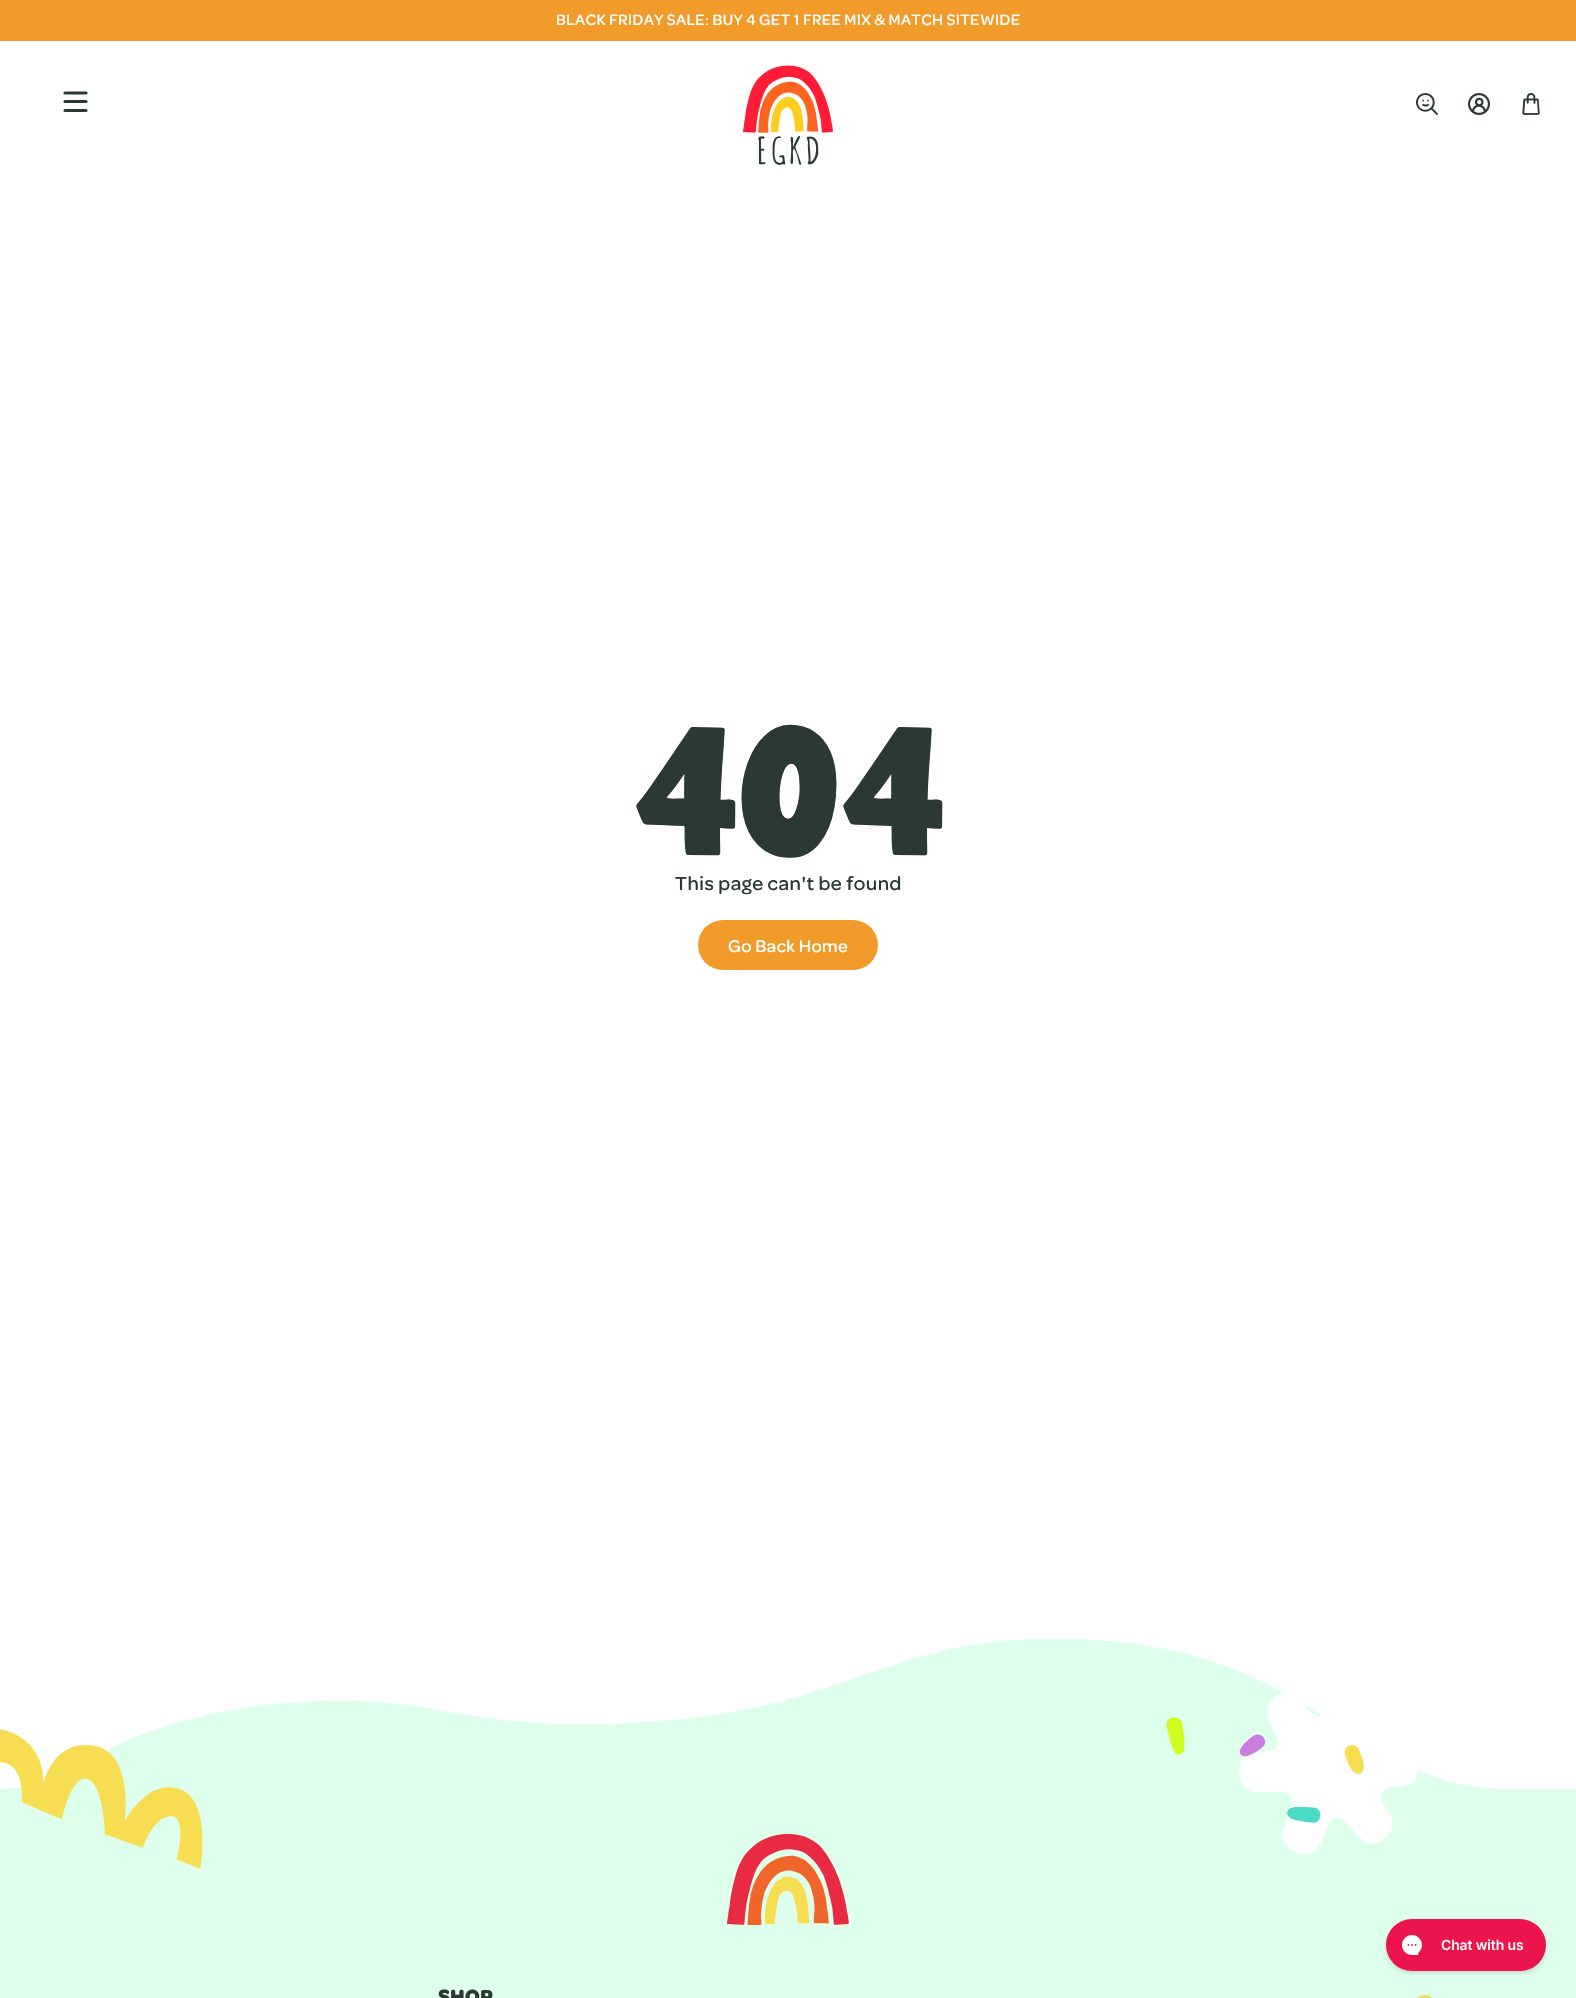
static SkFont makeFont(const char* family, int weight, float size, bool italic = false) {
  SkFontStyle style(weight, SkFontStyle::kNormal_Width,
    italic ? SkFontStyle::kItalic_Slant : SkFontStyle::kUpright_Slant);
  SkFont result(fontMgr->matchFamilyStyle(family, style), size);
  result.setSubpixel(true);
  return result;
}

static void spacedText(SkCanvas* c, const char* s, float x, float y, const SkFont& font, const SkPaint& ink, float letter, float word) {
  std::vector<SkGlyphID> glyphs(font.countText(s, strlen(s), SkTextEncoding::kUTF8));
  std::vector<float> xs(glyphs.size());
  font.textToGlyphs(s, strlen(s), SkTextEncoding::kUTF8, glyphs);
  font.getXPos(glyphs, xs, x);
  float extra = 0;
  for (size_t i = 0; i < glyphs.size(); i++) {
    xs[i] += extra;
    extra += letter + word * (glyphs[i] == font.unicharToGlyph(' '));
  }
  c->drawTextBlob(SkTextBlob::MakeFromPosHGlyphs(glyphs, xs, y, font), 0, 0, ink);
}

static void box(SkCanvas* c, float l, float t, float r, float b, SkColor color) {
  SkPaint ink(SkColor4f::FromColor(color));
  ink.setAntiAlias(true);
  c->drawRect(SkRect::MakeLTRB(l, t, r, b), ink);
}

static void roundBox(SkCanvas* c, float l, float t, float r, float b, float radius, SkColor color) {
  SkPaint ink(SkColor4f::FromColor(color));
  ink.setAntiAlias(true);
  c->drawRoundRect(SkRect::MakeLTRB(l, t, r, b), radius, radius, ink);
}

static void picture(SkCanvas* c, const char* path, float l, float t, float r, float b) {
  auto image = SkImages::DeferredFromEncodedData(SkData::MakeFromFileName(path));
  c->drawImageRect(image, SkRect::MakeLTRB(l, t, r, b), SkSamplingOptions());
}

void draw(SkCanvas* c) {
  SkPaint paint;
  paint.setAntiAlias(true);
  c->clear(0xffffffff);
  box(c, 0, 0, 1576, 41, 0xfff09b2a);
  SkFont face1 = makeFont("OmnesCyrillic", 500, 16);
  paint.setColor(0xffffffff);
  spacedText(c, "BLACK FRIDAY SALE: BUY 4 GET 1 FREE MIX & MATCH SITEWIDE", 556, 25, face1, paint, 0.37f, 0);
  paint.setStyle(SkPaint::kStroke_Style);
  paint.setStrokeWidth(3.2f);
  paint.setStrokeCap(SkPaint::kRound_Cap);
  paint.setColor(0xff2b3934);
  c->drawPath(SkPathBuilder().moveTo(65, 93).lineTo(86, 93).moveTo(65, 101.5f).lineTo(86, 101.5f).moveTo(65, 110.5f).lineTo(86, 110.5f).detach(), paint);
  picture(c, "img_01.png", 743, 65, 833, 165);
  picture(c, "img_02.png", 1416, 93, 1438, 115);
  picture(c, "img_03.png", 1468, 93, 1490, 115);
  picture(c, "img_04.png", 1522, 93, 1540, 115);
  SkFont face2 = makeFont("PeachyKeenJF", 400, 160);
  paint.setStyle(SkPaint::kFill_Style);
  spacedText(c, "404", 633, 855, face2, paint, -1.5f, 0);
  SkFont face3 = makeFont("OmnesCyrillic", 500, 20.25f);
  spacedText(c, "This page can't be found", 675, 890, face3, paint, 0.5f, 0);
  roundBox(c, 698, 920, 878, 970, 25, 0xfff09b2a);
  SkFont face4 = makeFont("OmnesCyrillic", 500, 18);
  paint.setColor(0xffffffff);
  spacedText(c, "Go Back Home", 728, 952, face4, paint, 0.4f, 0);
  box(c, 0, 1789, 1576, 1998, 0xffdeffec);
  picture(c, "img_05.png", 1384, 1919, 1548, 1975);
  c->save();
  c->clipRect(SkRect::MakeLTRB(0, 1639, 1576, 1789));
  paint.setColor(0xffdeffec);
  c->drawPath(SkPathBuilder().moveTo(2, 1789).lineTo(1509, 1789).cubicTo(1360, 1789, 1320, 1658, 1108, 1641).cubicTo(895, 1624, 867, 1706, 659, 1721).cubicTo(451, 1737, 439, 1687, 275, 1704).cubicTo(110, 1721, 67, 1789, 2, 1789).close().detach(), paint);
  c->restore();
  picture(c, "img_06.png", 1239, 1693, 1418, 1854);
  picture(c, "img_07.png", 0, 1729, 203, 1869);
  picture(c, "img_08.png", 1166, 1717, 1364, 1823);
  picture(c, "img_09.png", 727, 1834, 849, 1926);
  SkFont face5 = makeFont("OmnesCyrillic", 700, 20.25f);
  paint.setColor(0xff2b3934);
  spacedText(c, "SHOP", 438, 2003, face5, paint, 0.5f, 0);
  picture(c, "img_10.png", 1416, 1995, 1432, 1998);
}
